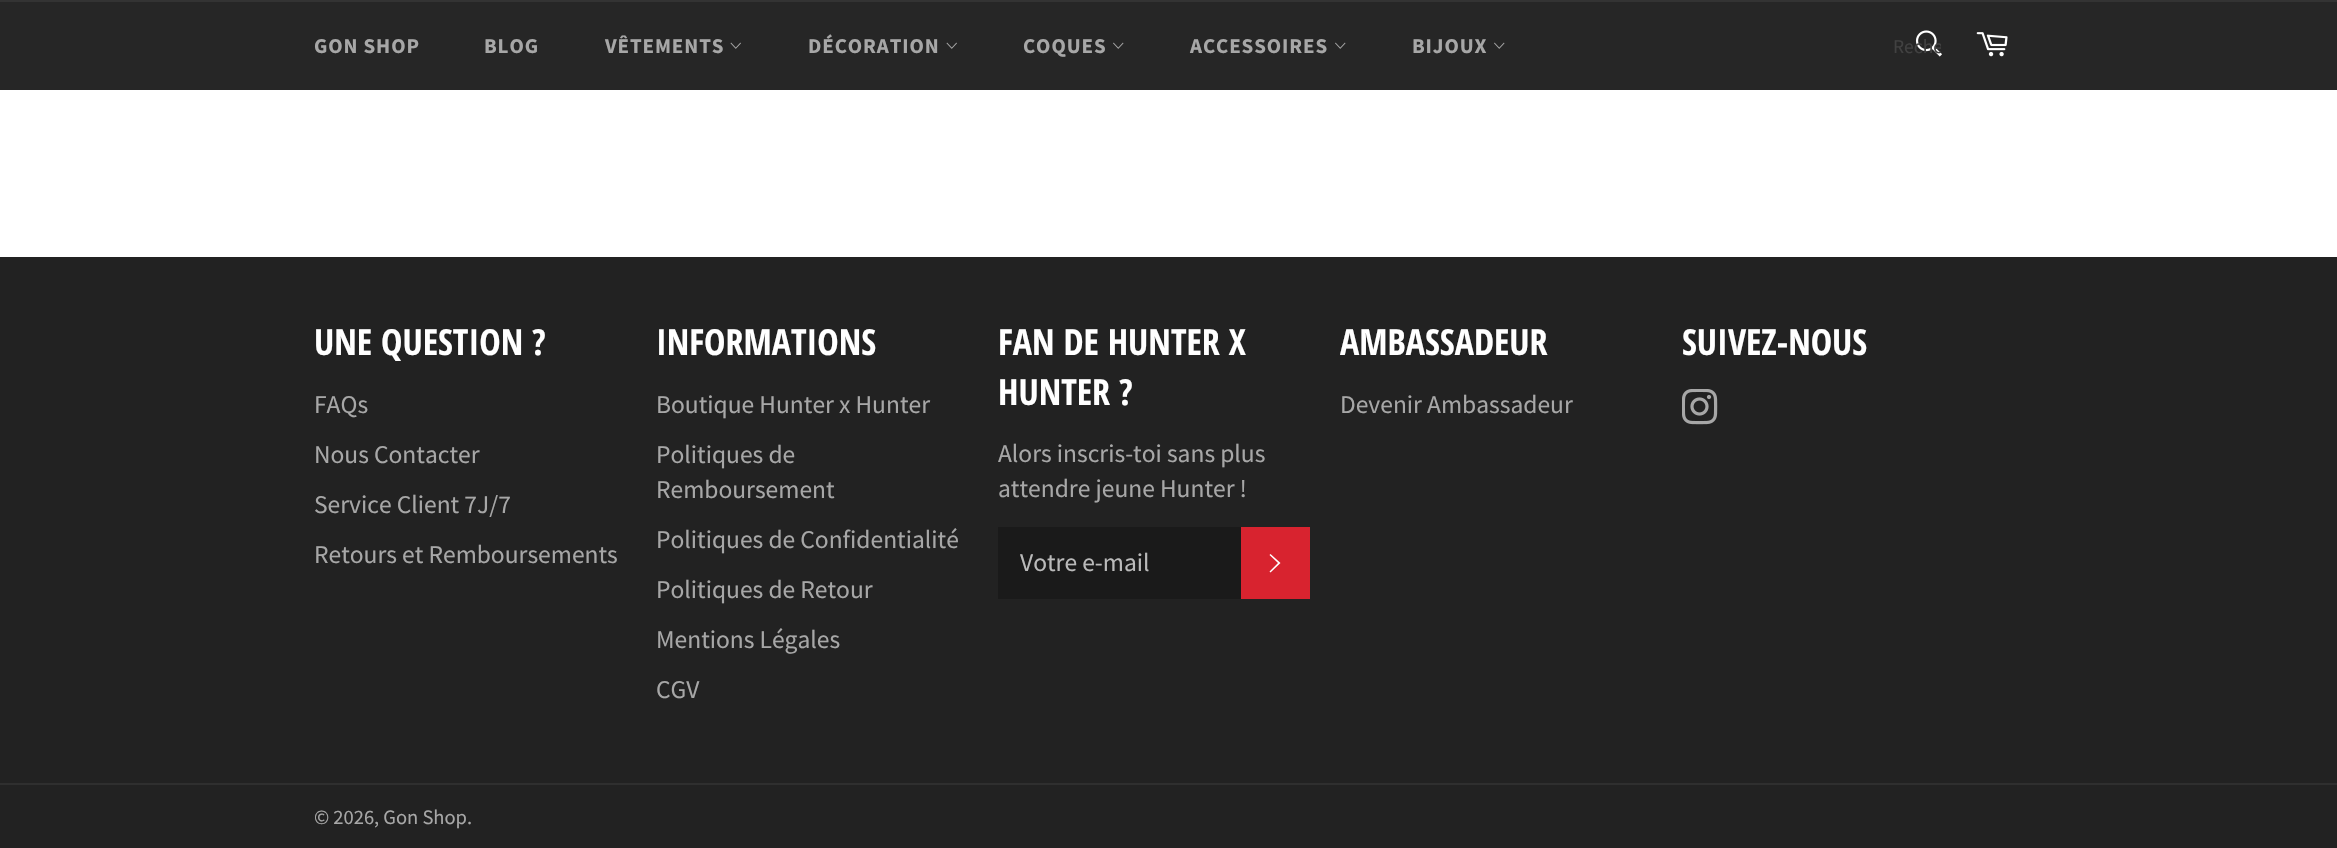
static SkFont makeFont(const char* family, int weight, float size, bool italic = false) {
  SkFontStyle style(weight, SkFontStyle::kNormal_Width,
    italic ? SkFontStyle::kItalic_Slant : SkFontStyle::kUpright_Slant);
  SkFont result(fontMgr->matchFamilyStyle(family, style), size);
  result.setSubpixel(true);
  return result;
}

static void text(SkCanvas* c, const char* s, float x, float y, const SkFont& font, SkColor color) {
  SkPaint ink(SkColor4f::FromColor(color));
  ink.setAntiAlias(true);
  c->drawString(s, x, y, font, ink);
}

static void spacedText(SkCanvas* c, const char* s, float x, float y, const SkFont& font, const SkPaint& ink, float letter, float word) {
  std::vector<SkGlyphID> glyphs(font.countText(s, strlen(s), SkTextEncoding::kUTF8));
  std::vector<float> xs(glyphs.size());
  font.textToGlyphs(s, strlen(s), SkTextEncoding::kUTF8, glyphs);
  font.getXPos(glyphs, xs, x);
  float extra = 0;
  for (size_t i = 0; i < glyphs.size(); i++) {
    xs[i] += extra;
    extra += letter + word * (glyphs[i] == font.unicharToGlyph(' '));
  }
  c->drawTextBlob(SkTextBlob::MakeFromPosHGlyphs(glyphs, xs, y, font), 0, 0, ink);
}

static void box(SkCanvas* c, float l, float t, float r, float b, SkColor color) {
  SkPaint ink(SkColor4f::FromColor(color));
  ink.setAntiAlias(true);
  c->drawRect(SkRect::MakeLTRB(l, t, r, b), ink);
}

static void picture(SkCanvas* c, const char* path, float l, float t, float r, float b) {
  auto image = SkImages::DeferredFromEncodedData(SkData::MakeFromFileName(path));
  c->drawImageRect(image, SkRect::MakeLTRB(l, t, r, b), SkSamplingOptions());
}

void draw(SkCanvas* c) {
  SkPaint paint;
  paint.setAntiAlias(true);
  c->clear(0xffffffff);
  box(c, 0, 2, 2337, 90, 0xff262626);
  box(c, 0, 0, 2337, 2, 0xff333333);
  SkFont face1 = makeFont("Source Sans Pro", 700, 21);
  paint.setColor(0xffa7a7a7);
  spacedText(c, "GON SHOP", 314, 53, face1, paint, 0.9f, 0);
  spacedText(c, "BLOG", 484, 53, face1, paint, 0.9f, 0);
  spacedText(c, "VÊTEMENTS", 605, 53, face1, paint, 0.9f, 0);
  picture(c, "img_01.png", 730, 42, 741, 49);
  spacedText(c, "DÉCORATION", 808, 53, face1, paint, 0.9f, 0);
  picture(c, "img_01.png", 946, 42, 957, 49);
  spacedText(c, "COQUES", 1023, 53, face1, paint, 0.9f, 0);
  picture(c, "img_02.png", 1113, 42, 1124, 49);
  spacedText(c, "ACCESSOIRES", 1190, 53, face1, paint, 0.9f, 0);
  picture(c, "img_02.png", 1335, 42, 1346, 49);
  spacedText(c, "BIJOUX", 1412, 53, face1, paint, 0.9f, 0);
  picture(c, "img_02.png", 1494, 42, 1505, 49);
  picture(c, "img_03.png", 1915, 30, 1942, 57);
  c->save();
  c->clipRect(SkRect::MakeLTRB(1893, 33, 1941, 59));
  SkFont face2 = makeFont("Source Sans Pro", 400, 19.5f);
  text(c, "Reche", 1893, 53, face2, 0xff414141);
  c->restore();
  picture(c, "img_04.png", 1976, 32, 2008, 57);
  box(c, 0, 257, 2337, 848, 0xff222222);
  SkFont face3 = makeFont("Open Sans Condensed", 700, 36);
  text(c, "UNE QUESTION ?", 314, 355, face3, 0xffffffff);
  SkFont face4 = makeFont("Source Sans Pro", 400, 25.5f);
  text(c, "FAQs", 314, 413, face4, 0xffa7a7a7);
  text(c, "Nous Contacter", 314, 463, face4, 0xffa7a7a7);
  text(c, "Service Client 7J/7", 314, 513, face4, 0xffa7a7a7);
  text(c, "Retours et Remboursements", 314, 563, face4, 0xffa7a7a7);
  text(c, "INFORMATIONS", 656, 355, face3, 0xffffffff);
  text(c, "Boutique Hunter x Hunter", 656, 413, face4, 0xffa7a7a7);
  text(c, "Politiques de", 656, 463, face4, 0xffa7a7a7);
  text(c, "Remboursement", 656, 498, face4, 0xffa7a7a7);
  text(c, "Politiques de Confidentialité", 656, 548, face4, 0xffa7a7a7);
  text(c, "Politiques de Retour", 656, 598, face4, 0xffa7a7a7);
  text(c, "Mentions Légales", 656, 648, face4, 0xffa7a7a7);
  text(c, "CGV", 656, 698, face4, 0xffa7a7a7);
  text(c, "FAN DE HUNTER X", 998, 355, face3, 0xffffffff);
  text(c, "HUNTER ?", 998, 405, face3, 0xffffffff);
  text(c, "Alors inscris-toi sans plus", 998, 462, face4, 0xffa7a7a7);
  text(c, "attendre jeune Hunter !", 998, 497, face4, 0xffa7a7a7);
  box(c, 998, 527, 1241, 599, 0xff1a1a1a);
  text(c, "Votre e-mail", 1020, 571, face4, 0xffbababa);
  box(c, 1241, 527, 1310, 599, 0xffd8232f);
  paint.setColor(0xffffffff);
  c->drawPath(SkPathBuilder().moveTo(1269.5f, 555).lineTo(1270.5f, 554).lineTo(1280.5f, 563).lineTo(1270.5f, 572.5f).lineTo(1269.5f, 571.5f).lineTo(1278, 563).close().detach(), paint);
  text(c, "AMBASSADEUR", 1340, 355, face3, 0xffffffff);
  text(c, "Devenir Ambassadeur", 1340, 413, face4, 0xffa7a7a7);
  text(c, "SUIVEZ-NOUS", 1682, 355, face3, 0xffffffff);
  picture(c, "img_05.png", 1682, 389, 1718, 425);
  box(c, 0, 783, 2337, 785, 0xff2f2f2f);
  SkFont face5 = makeFont("Source Sans Pro", 400, 20.5f);
  text(c, "© 2026, Gon Shop.", 314, 824, face5, 0xffa7a7a7);
}
